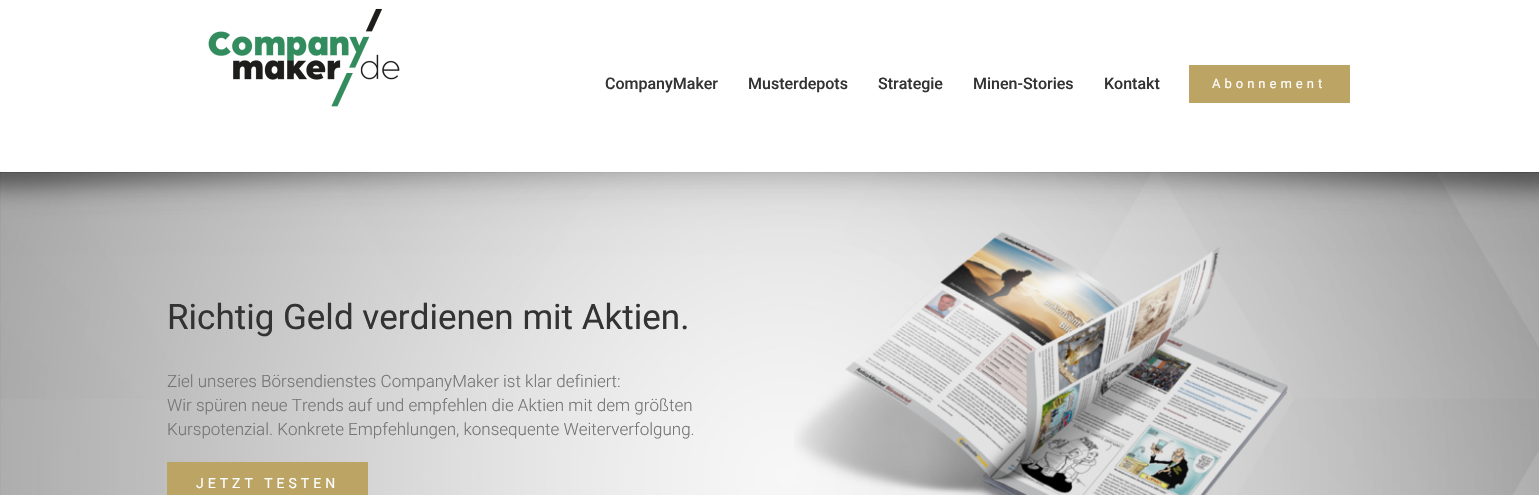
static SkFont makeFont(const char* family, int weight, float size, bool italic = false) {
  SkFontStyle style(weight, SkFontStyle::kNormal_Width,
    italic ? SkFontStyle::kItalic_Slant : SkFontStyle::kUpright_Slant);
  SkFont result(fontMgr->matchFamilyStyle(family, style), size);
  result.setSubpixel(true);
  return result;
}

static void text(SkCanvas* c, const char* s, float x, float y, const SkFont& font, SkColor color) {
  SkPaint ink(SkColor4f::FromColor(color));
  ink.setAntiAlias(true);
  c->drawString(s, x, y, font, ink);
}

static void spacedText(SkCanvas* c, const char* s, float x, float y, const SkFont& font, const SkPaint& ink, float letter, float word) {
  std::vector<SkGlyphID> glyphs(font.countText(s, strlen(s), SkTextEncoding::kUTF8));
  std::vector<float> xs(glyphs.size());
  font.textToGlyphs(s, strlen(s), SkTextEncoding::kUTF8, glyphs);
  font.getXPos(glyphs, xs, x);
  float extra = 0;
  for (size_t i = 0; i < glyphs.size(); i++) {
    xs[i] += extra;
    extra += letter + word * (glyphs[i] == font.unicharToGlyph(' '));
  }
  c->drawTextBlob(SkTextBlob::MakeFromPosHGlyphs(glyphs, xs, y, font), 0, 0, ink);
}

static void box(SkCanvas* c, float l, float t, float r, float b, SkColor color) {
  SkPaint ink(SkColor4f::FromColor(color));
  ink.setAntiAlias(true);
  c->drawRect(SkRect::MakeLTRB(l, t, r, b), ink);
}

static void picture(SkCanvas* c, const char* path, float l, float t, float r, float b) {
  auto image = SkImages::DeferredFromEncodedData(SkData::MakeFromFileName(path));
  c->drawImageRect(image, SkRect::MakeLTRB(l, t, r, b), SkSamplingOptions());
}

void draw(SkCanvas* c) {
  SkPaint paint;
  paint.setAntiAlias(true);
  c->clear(0xffffffff);
  picture(c, "img_02.png", 0, 172, 1539, 495);
  picture(c, "img_03.png", 794, 232, 1288, 495);
  paint.setColor(0x24000000);
  paint.setMaskFilter(SkMaskFilter::MakeBlur(kNormal_SkBlurStyle, 25));
  c->drawRect(SkRect::MakeLTRB(2, 12, 1537, 180), paint);
  paint.setMaskFilter(nullptr);
  box(c, 0, 0, 1539, 172, 0xffffffff);
  picture(c, "img_01.png", 208, 8, 400, 107);
  SkFont face1 = makeFont("Roboto", 500, 16);
  text(c, "CompanyMaker", 605, 89, face1, 0xff333333);
  text(c, "Musterdepots", 748, 89, face1, 0xff333333);
  text(c, "Strategie", 878, 89, face1, 0xff333333);
  text(c, "Minen-Stories", 973, 89, face1, 0xff333333);
  text(c, "Kontakt", 1104, 89, face1, 0xff333333);
  box(c, 1189, 65, 1350, 103, 0xffbca465);
  SkFont face2 = makeFont("Roboto", 400, 13);
  paint.setColor(0xffffffff);
  spacedText(c, "Abonnement", 1212, 88, face2, paint, 4, 0);
  SkFont face3 = makeFont("Roboto", 400, 35);
  text(c, "Richtig Geld verdienen mit Aktien.", 167, 329, face3, 0xff333333);
  SkFont face4 = makeFont("Roboto", 300, 17);
  text(c, "Ziel unseres Börsendienstes CompanyMaker ist klar definiert:", 167, 387, face4, 0xff747474);
  text(c, "Wir spüren neue Trends auf und empfehlen die Aktien mit dem größten", 167, 411, face4, 0xff747474);
  text(c, "Kurspotenzial. Konkrete Empfehlungen, konsequente Weiterverfolgung.", 167, 435, face4, 0xff747474);
  box(c, 167, 462, 368, 495, 0xffbca465);
  SkFont face5 = makeFont("Roboto", 400, 14);
  spacedText(c, "JETZT TESTEN", 196, 488, face5, paint, 4, 0);
}
